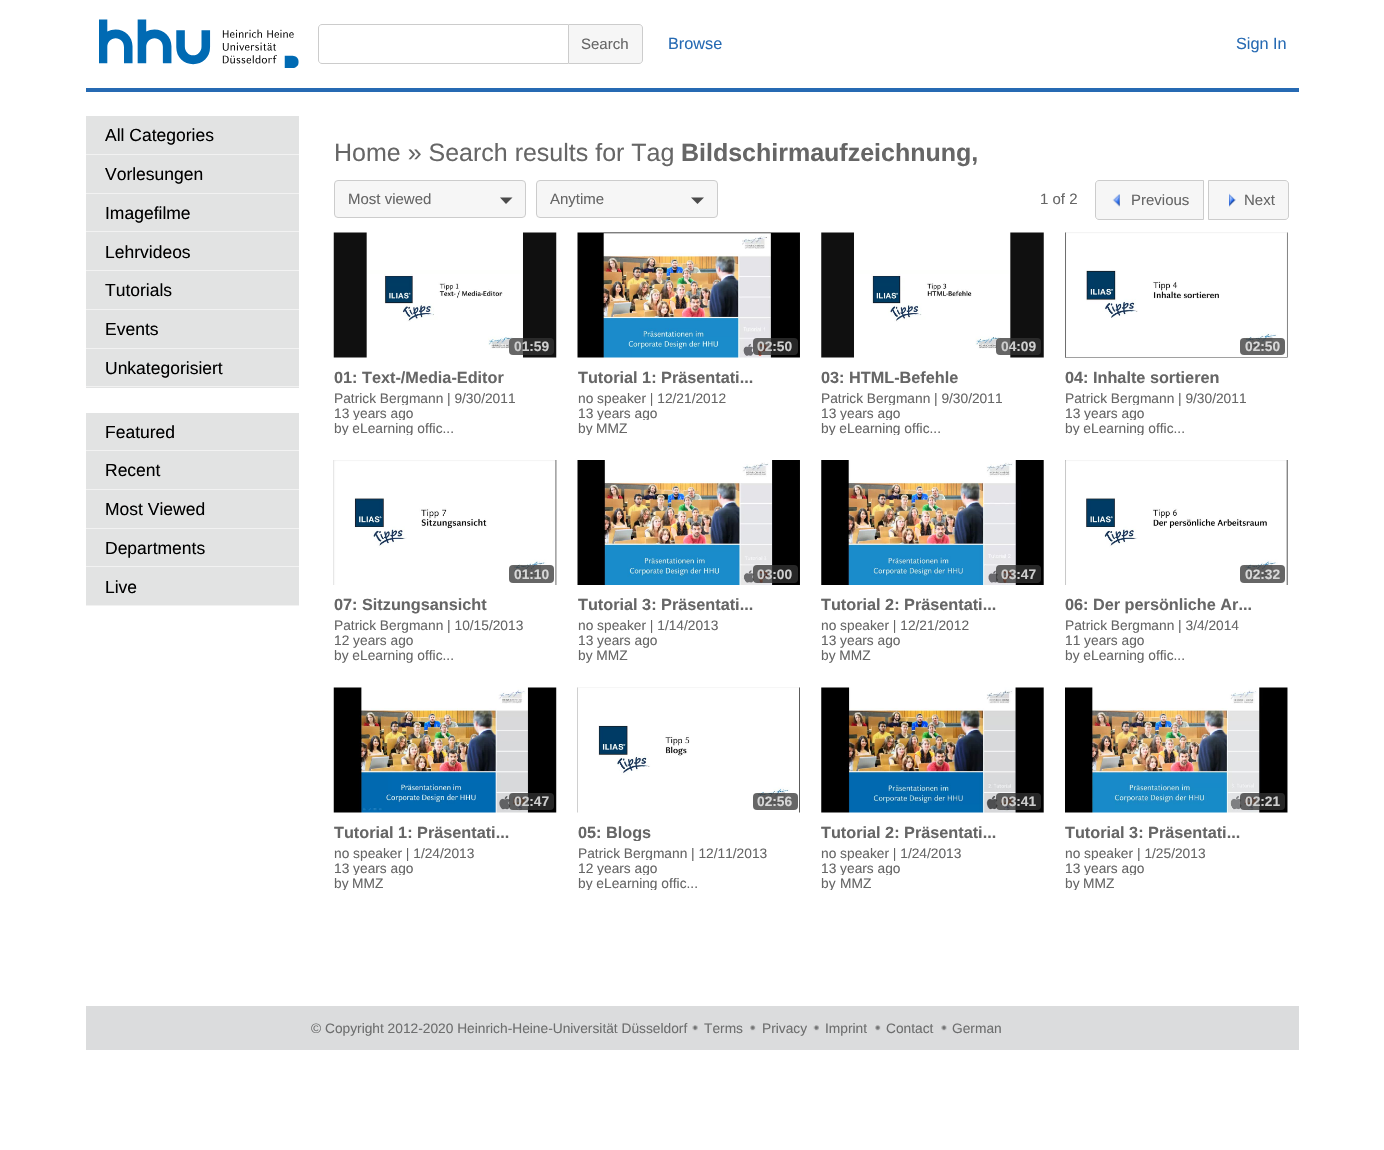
static SkFont makeFont(const char* family, int weight, float size, bool italic = false) {
  SkFontStyle style(weight, SkFontStyle::kNormal_Width,
    italic ? SkFontStyle::kItalic_Slant : SkFontStyle::kUpright_Slant);
  SkFont result(fontMgr->matchFamilyStyle(family, style), size);
  result.setSubpixel(true);
  return result;
}

static void text(SkCanvas* c, const char* s, float x, float y, const SkFont& font, SkColor color) {
  SkPaint ink(SkColor4f::FromColor(color));
  ink.setAntiAlias(true);
  c->drawString(s, x, y, font, ink);
}

static void box(SkCanvas* c, float l, float t, float r, float b, SkColor color) {
  SkPaint ink(SkColor4f::FromColor(color));
  ink.setAntiAlias(true);
  c->drawRect(SkRect::MakeLTRB(l, t, r, b), ink);
}

static void roundBox(SkCanvas* c, float l, float t, float r, float b, float radius, SkColor color) {
  SkPaint ink(SkColor4f::FromColor(color));
  ink.setAntiAlias(true);
  c->drawRoundRect(SkRect::MakeLTRB(l, t, r, b), radius, radius, ink);
}

static void picture(SkCanvas* c, const char* path, float l, float t, float r, float b) {
  auto image = SkImages::DeferredFromEncodedData(SkData::MakeFromFileName(path));
  c->drawImageRect(image, SkRect::MakeLTRB(l, t, r, b), SkSamplingOptions());
}

void draw(SkCanvas* c) {
  SkPaint paint;
  paint.setAntiAlias(true);
  c->clear(0xffffffff);
  picture(c, "img_01.png", 99, 19, 299, 68);
  paint.setColor(0xfff6f6f6);
  c->drawPath(SkPathBuilder().moveTo(568.5f, 24.5f).lineTo(639, 24.5f).cubicTo(641, 24.5f, 642.5f, 26, 642.5f, 28).lineTo(642.5f, 60).cubicTo(642.5f, 62, 641, 63.5f, 639, 63.5f).lineTo(568.5f, 63.5f).close().detach(), paint);
  paint.setStyle(SkPaint::kStroke_Style);
  paint.setStrokeWidth(1);
  paint.setColor(0xffcccccc);
  c->drawPath(SkPathBuilder().moveTo(568.5f, 24.5f).lineTo(639, 24.5f).cubicTo(641, 24.5f, 642.5f, 26, 642.5f, 28).lineTo(642.5f, 60).cubicTo(642.5f, 62, 641, 63.5f, 639, 63.5f).lineTo(568.5f, 63.5f).close().detach(), paint);
  c->save();
  c->clipRect(SkRect::MakeLTRB(318, 24, 568, 64));
  c->drawPath(SkPathBuilder().moveTo(322, 24.5f).lineTo(652.5f, 24.5f).lineTo(652.5f, 63.5f).lineTo(322, 63.5f).cubicTo(320, 63.5f, 318.5f, 62, 318.5f, 60).lineTo(318.5f, 28).cubicTo(318.5f, 26, 320, 24.5f, 322, 24.5f).close().detach(), paint);
  c->restore();
  SkFont face1 = makeFont("Liberation Sans", 400, 15);
  text(c, "Search", 581, 49, face1, 0xff666666);
  SkFont face2 = makeFont("Liberation Sans", 400, 16.25f);
  text(c, "Browse", 668, 49, face2, 0xff266ab3);
  text(c, "Sign In", 1236, 49, face2, 0xff266ab3);
  box(c, 86, 88, 1299, 92, 0xff266ab3);
  box(c, 86, 116, 299, 154, 0xffe2e3e3);
  box(c, 86, 154, 299, 155, 0xfff2f2f2);
  SkFont face3 = makeFont("Liberation Sans", 400, 17.5f);
  text(c, "All Categories", 105, 141, face3, 0xff000000);
  box(c, 86, 155, 299, 193, 0xffe2e3e3);
  box(c, 86, 193, 299, 194, 0xfff2f2f2);
  text(c, "Vorlesungen", 105, 180, face3, 0xff000000);
  box(c, 86, 194, 299, 270, 0xffe2e3e3);
  box(c, 86, 231, 299, 232, 0xfff2f2f2);
  text(c, "Imagefilme", 105, 219, face3, 0xff000000);
  box(c, 86, 270, 299, 271, 0xfff2f2f2);
  text(c, "Lehrvideos", 105, 258, face3, 0xff000000);
  box(c, 86, 271, 299, 309, 0xffe2e3e3);
  box(c, 86, 309, 299, 310, 0xfff2f2f2);
  text(c, "Tutorials", 105, 296, face3, 0xff000000);
  box(c, 86, 310, 299, 348, 0xffe2e3e3);
  box(c, 86, 348, 299, 349, 0xfff2f2f2);
  text(c, "Events", 105, 335, face3, 0xff000000);
  box(c, 86, 349, 299, 388, 0xffe2e3e3);
  box(c, 86, 386, 299, 387, 0xfff2f2f2);
  text(c, "Unkategorisiert", 105, 374, face3, 0xff000000);
  box(c, 86, 413, 299, 450, 0xffe2e3e3);
  box(c, 86, 450, 299, 451, 0xfff2f2f2);
  text(c, "Featured", 105, 438, face3, 0xff000000);
  box(c, 86, 451, 299, 489, 0xffe2e3e3);
  box(c, 86, 489, 299, 490, 0xfff2f2f2);
  text(c, "Recent", 105, 476, face3, 0xff000000);
  box(c, 86, 490, 299, 528, 0xffe2e3e3);
  box(c, 86, 528, 299, 529, 0xfff2f2f2);
  text(c, "Most Viewed", 105, 515, face3, 0xff000000);
  box(c, 86, 529, 299, 605, 0xffe2e3e3);
  box(c, 86, 566, 299, 567, 0xfff2f2f2);
  text(c, "Departments", 105, 554, face3, 0xff000000);
  box(c, 86, 605, 299, 606, 0xfff2f2f2);
  text(c, "Live", 105, 593, face3, 0xff000000);
  SkFont face4 = makeFont("Liberation Sans", 400, 25);
  text(c, "Home » Search results for Tag", 334, 161, face4, 0xff666666);
  SkFont face5 = makeFont("Liberation Sans", 700, 25);
  text(c, "Bildschirmaufzeichnung,", 681, 161, face5, 0xff666666);
  paint.setStyle(SkPaint::kFill_Style);
  paint.setColor(0xfff6f6f6);
  c->drawRoundRect(SkRect::MakeLTRB(334.5f, 180.5f, 525.5f, 217.5f), 3.5f, 3.5f, paint);
  paint.setStyle(SkPaint::kStroke_Style);
  paint.setColor(0xffcccccc);
  c->drawRoundRect(SkRect::MakeLTRB(334.5f, 180.5f, 525.5f, 217.5f), 3.5f, 3.5f, paint);
  text(c, "Most viewed", 348, 204, face1, 0xff666666);
  paint.setStyle(SkPaint::kFill_Style);
  paint.setColor(0xff4b4b4b);
  c->drawPath(SkPathBuilder().moveTo(500, 197.5f).lineTo(512.5f, 197.5f).lineTo(506, 204).close().detach(), paint);
  paint.setColor(0xfff6f6f6);
  c->drawRoundRect(SkRect::MakeLTRB(536.5f, 180.5f, 717.5f, 217.5f), 3.5f, 3.5f, paint);
  paint.setStyle(SkPaint::kStroke_Style);
  paint.setColor(0xffcccccc);
  c->drawRoundRect(SkRect::MakeLTRB(536.5f, 180.5f, 717.5f, 217.5f), 3.5f, 3.5f, paint);
  text(c, "Anytime", 550, 204, face1, 0xff666666);
  paint.setStyle(SkPaint::kFill_Style);
  paint.setColor(0xff4b4b4b);
  c->drawPath(SkPathBuilder().moveTo(691, 197.5f).lineTo(704, 197.5f).lineTo(697.5f, 204).close().detach(), paint);
  text(c, "1 of 2", 1040, 204, face1, 0xff666666);
  paint.setColor(0xfff6f6f6);
  c->drawPath(SkPathBuilder().moveTo(1099, 180.5f).lineTo(1203.5f, 180.5f).lineTo(1203.5f, 219.5f).lineTo(1099, 219.5f).cubicTo(1097, 219.5f, 1095.5f, 218, 1095.5f, 216).lineTo(1095.5f, 184).cubicTo(1095.5f, 182, 1097, 180.5f, 1099, 180.5f).close().detach(), paint);
  paint.setStyle(SkPaint::kStroke_Style);
  paint.setColor(0xffcccccc);
  c->drawPath(SkPathBuilder().moveTo(1099, 180.5f).lineTo(1203.5f, 180.5f).lineTo(1203.5f, 219.5f).lineTo(1099, 219.5f).cubicTo(1097, 219.5f, 1095.5f, 218, 1095.5f, 216).lineTo(1095.5f, 184).cubicTo(1095.5f, 182, 1097, 180.5f, 1099, 180.5f).close().detach(), paint);
  picture(c, "img_02.png", 1112, 194, 1120, 207);
  text(c, "Previous", 1131, 205, face1, 0xff666666);
  paint.setStyle(SkPaint::kFill_Style);
  paint.setColor(0xfff6f6f6);
  c->drawPath(SkPathBuilder().moveTo(1208.5f, 180.5f).lineTo(1285, 180.5f).cubicTo(1287, 180.5f, 1288.5f, 182, 1288.5f, 184).lineTo(1288.5f, 216).cubicTo(1288.5f, 218, 1287, 219.5f, 1285, 219.5f).lineTo(1208.5f, 219.5f).close().detach(), paint);
  paint.setStyle(SkPaint::kStroke_Style);
  paint.setColor(0xffcccccc);
  c->drawPath(SkPathBuilder().moveTo(1208.5f, 180.5f).lineTo(1285, 180.5f).cubicTo(1287, 180.5f, 1288.5f, 182, 1288.5f, 184).lineTo(1288.5f, 216).cubicTo(1288.5f, 218, 1287, 219.5f, 1285, 219.5f).lineTo(1208.5f, 219.5f).close().detach(), paint);
  picture(c, "img_03.png", 1229, 193, 1236, 207);
  text(c, "Next", 1244, 205, face1, 0xff666666);
  picture(c, "img_04.png", 333, 232, 557, 358);
  roundBox(c, 509, 338, 554, 355, 4, 0xbf333333);
  SkFont face6 = makeFont("Liberation Sans", 700, 13.75f);
  text(c, "01:59", 514, 351, face6, 0xffcecece);
  SkFont face7 = makeFont("Liberation Sans", 700, 16.25f);
  text(c, "01: Text-/Media-Editor", 334, 383, face7, 0xff666666);
  c->save();
  c->clipRect(SkRect::MakeLTRB(334, 390, 556, 405));
  SkFont face8 = makeFont("Liberation Sans", 400, 13.75f);
  text(c, "Patrick Bergmann", 334, 403, face8, 0xff666666);
  c->restore();
  text(c, "| 9/30/2011", 447, 403, face8, 0xff666666);
  c->save();
  c->clipRect(SkRect::MakeLTRB(334, 405, 556, 420));
  text(c, "13 years ago", 334, 418, face8, 0xff666666);
  c->restore();
  c->save();
  c->clipRect(SkRect::MakeLTRB(334, 368, 556, 435));
  text(c, "by eLearning offic...", 334, 433, face8, 0xff666666);
  c->restore();
  picture(c, "img_05.png", 577, 232, 800, 358);
  roundBox(c, 753, 338, 798, 355, 4, 0xbf333333);
  text(c, "02:50", 757, 351, face6, 0xffcecece);
  c->save();
  c->clipRect(SkRect::MakeLTRB(578, 368, 800, 386));
  text(c, "Tutorial 1: Präsentati...", 578, 383, face7, 0xff666666);
  c->restore();
  text(c, "no speaker | 12/21/2012", 578, 403, face8, 0xff666666);
  c->save();
  c->clipRect(SkRect::MakeLTRB(578, 405, 800, 420));
  text(c, "13 years ago", 578, 418, face8, 0xff666666);
  c->restore();
  c->save();
  c->clipRect(SkRect::MakeLTRB(578, 368, 800, 435));
  text(c, "by", 578, 433, face8, 0xff666666);
  c->restore();
  text(c, "MMZ", 596, 433, face8, 0xff666666);
  picture(c, "img_06.png", 821, 232, 1044, 358);
  roundBox(c, 996, 338, 1041, 355, 4, 0xbf333333);
  text(c, "04:09", 1001, 351, face6, 0xffcecece);
  text(c, "03: HTML-Befehle", 821, 383, face7, 0xff666666);
  c->save();
  c->clipRect(SkRect::MakeLTRB(821, 390, 1044, 405));
  text(c, "Patrick Bergmann", 821, 403, face8, 0xff666666);
  c->restore();
  text(c, "| 9/30/2011", 934, 403, face8, 0xff666666);
  c->save();
  c->clipRect(SkRect::MakeLTRB(821, 405, 1044, 420));
  text(c, "13 years ago", 821, 418, face8, 0xff666666);
  c->restore();
  c->save();
  c->clipRect(SkRect::MakeLTRB(821, 368, 1044, 435));
  text(c, "by eLearning offic...", 821, 433, face8, 0xff666666);
  c->restore();
  picture(c, "img_07.png", 1065, 232, 1288, 358);
  roundBox(c, 1240, 338, 1285, 355, 4, 0xbf333333);
  text(c, "02:50", 1245, 351, face6, 0xffd7d7d7);
  text(c, "04: Inhalte sortieren", 1065, 383, face7, 0xff666666);
  c->save();
  c->clipRect(SkRect::MakeLTRB(1065, 390, 1288, 405));
  text(c, "Patrick Bergmann", 1065, 403, face8, 0xff666666);
  c->restore();
  text(c, "| 9/30/2011", 1178, 403, face8, 0xff666666);
  c->save();
  c->clipRect(SkRect::MakeLTRB(1065, 405, 1288, 420));
  text(c, "13 years ago", 1065, 418, face8, 0xff666666);
  c->restore();
  c->save();
  c->clipRect(SkRect::MakeLTRB(1065, 368, 1288, 435));
  text(c, "by eLearning offic...", 1065, 433, face8, 0xff666666);
  c->restore();
  picture(c, "img_08.png", 333, 460, 557, 585);
  roundBox(c, 509, 565, 554, 583, 4, 0xbf333333);
  text(c, "01:10", 514, 579, face6, 0xffd7d7d7);
  text(c, "07: Sitzungsansicht", 334, 610, face7, 0xff666666);
  text(c, "Patrick Bergmann | 10/15/2013", 334, 630, face8, 0xff666666);
  text(c, "12 years ago", 334, 645, face8, 0xff666666);
  text(c, "by eLearning offic...", 334, 660, face8, 0xff666666);
  picture(c, "img_09.png", 577, 460, 800, 585);
  roundBox(c, 753, 565, 798, 583, 4, 0xbf333333);
  text(c, "03:00", 757, 579, face6, 0xffcecece);
  c->save();
  c->clipRect(SkRect::MakeLTRB(578, 595, 800, 614));
  text(c, "Tutorial 3: Präsentati...", 578, 610, face7, 0xff666666);
  c->restore();
  text(c, "no speaker | 1/14/2013", 578, 630, face8, 0xff666666);
  text(c, "13 years ago", 578, 645, face8, 0xff666666);
  text(c, "by MMZ", 578, 660, face8, 0xff666666);
  picture(c, "img_10.png", 821, 460, 1044, 585);
  roundBox(c, 996, 565, 1041, 583, 4, 0xbf333333);
  text(c, "03:47", 1001, 579, face6, 0xffcecece);
  text(c, "Tutorial 2: Präsentati...", 821, 610, face7, 0xff666666);
  text(c, "no speaker | 12/21/2012", 821, 630, face8, 0xff666666);
  text(c, "13 years ago", 821, 645, face8, 0xff666666);
  text(c, "by MMZ", 821, 660, face8, 0xff666666);
  picture(c, "img_11.png", 1065, 460, 1288, 585);
  roundBox(c, 1240, 565, 1285, 583, 4, 0xbf333333);
  text(c, "02:32", 1245, 579, face6, 0xffd7d7d7);
  text(c, "06: Der persönliche Ar...", 1065, 610, face7, 0xff666666);
  text(c, "Patrick Bergmann | 3/4/2014", 1065, 630, face8, 0xff666666);
  text(c, "11 years ago", 1065, 645, face8, 0xff666666);
  text(c, "by eLearning offic...", 1065, 660, face8, 0xff666666);
  picture(c, "img_12.png", 333, 687, 557, 813);
  roundBox(c, 509, 793, 554, 810, 4, 0xbf333333);
  text(c, "02:47", 514, 806, face6, 0xffcecece);
  text(c, "Tutorial 1: Präsentati...", 334, 838, face7, 0xff666666);
  text(c, "no speaker | 1/24/2013", 334, 858, face8, 0xff666666);
  c->save();
  c->clipRect(SkRect::MakeLTRB(334, 860, 556, 875));
  text(c, "13 years ago", 334, 873, face8, 0xff666666);
  c->restore();
  c->save();
  c->clipRect(SkRect::MakeLTRB(334, 823, 556, 890));
  text(c, "by", 334, 888, face8, 0xff666666);
  c->restore();
  text(c, "MMZ", 352, 888, face8, 0xff666666);
  picture(c, "img_13.png", 577, 687, 800, 813);
  roundBox(c, 753, 793, 798, 810, 4, 0xbf333333);
  text(c, "02:56", 757, 806, face6, 0xffd7d7d7);
  c->save();
  c->clipRect(SkRect::MakeLTRB(578, 823, 800, 841));
  text(c, "05: Blogs", 578, 838, face7, 0xff666666);
  c->restore();
  c->save();
  c->clipRect(SkRect::MakeLTRB(578, 845, 800, 860));
  text(c, "Patrick Bergmann", 578, 858, face8, 0xff666666);
  c->restore();
  text(c, "| 12/11/2013", 691, 858, face8, 0xff666666);
  c->save();
  c->clipRect(SkRect::MakeLTRB(578, 860, 800, 875));
  text(c, "12 years ago", 578, 873, face8, 0xff666666);
  c->restore();
  c->save();
  c->clipRect(SkRect::MakeLTRB(578, 823, 800, 890));
  text(c, "by eLearning offic...", 578, 888, face8, 0xff666666);
  c->restore();
  picture(c, "img_14.png", 821, 687, 1044, 813);
  roundBox(c, 996, 793, 1041, 810, 4, 0xbf333333);
  text(c, "03:41", 1001, 806, face6, 0xffcecece);
  text(c, "Tutorial 2: Präsentati...", 821, 838, face7, 0xff666666);
  text(c, "no speaker | 1/24/2013", 821, 858, face8, 0xff666666);
  c->save();
  c->clipRect(SkRect::MakeLTRB(821, 860, 1044, 875));
  text(c, "13 years ago", 821, 873, face8, 0xff666666);
  c->restore();
  c->save();
  c->clipRect(SkRect::MakeLTRB(821, 823, 1044, 890));
  text(c, "by", 821, 888, face8, 0xff666666);
  c->restore();
  text(c, "MMZ", 840, 888, face8, 0xff666666);
  picture(c, "img_15.png", 1065, 687, 1288, 813);
  roundBox(c, 1240, 793, 1285, 810, 4, 0xbf333333);
  text(c, "02:21", 1245, 806, face6, 0xffcecece);
  text(c, "Tutorial 3: Präsentati...", 1065, 838, face7, 0xff666666);
  c->save();
  c->clipRect(SkRect::MakeLTRB(1065, 845, 1288, 860));
  text(c, "no speaker", 1065, 858, face8, 0xff666666);
  c->restore();
  text(c, "| 1/25/2013", 1137, 858, face8, 0xff666666);
  c->save();
  c->clipRect(SkRect::MakeLTRB(1065, 860, 1288, 875));
  text(c, "13 years ago", 1065, 873, face8, 0xff666666);
  c->restore();
  c->save();
  c->clipRect(SkRect::MakeLTRB(1065, 823, 1288, 890));
  text(c, "by", 1065, 888, face8, 0xff666666);
  c->restore();
  text(c, "MMZ", 1083, 888, face8, 0xff666666);
  box(c, 86, 1006, 1299, 1050, 0xffdbdcdd);
  text(c, "© Copyright 2012-2020 Heinrich-Heine-Universität Düsseldorf", 311, 1033, face8, 0xff6d6e6e);
  picture(c, "img_16.png", 692, 1025, 698, 1031);
  text(c, "Terms", 704, 1033, face8, 0xff6d6e6e);
  picture(c, "img_17.png", 750, 1025, 756, 1031);
  text(c, "Privacy", 762, 1033, face8, 0xff6d6e6e);
  picture(c, "img_18.png", 813, 1025, 819, 1031);
  text(c, "Imprint", 825, 1033, face8, 0xff6d6e6e);
  picture(c, "img_17.png", 875, 1025, 881, 1031);
  text(c, "Contact", 886, 1033, face8, 0xff6d6e6e);
  picture(c, "img_19.png", 941, 1025, 947, 1031);
  text(c, "German", 952, 1033, face8, 0xff6d6e6e);
}
